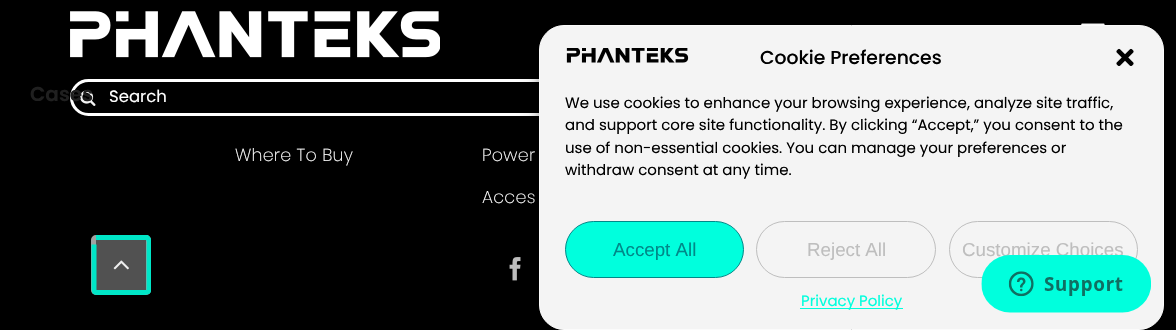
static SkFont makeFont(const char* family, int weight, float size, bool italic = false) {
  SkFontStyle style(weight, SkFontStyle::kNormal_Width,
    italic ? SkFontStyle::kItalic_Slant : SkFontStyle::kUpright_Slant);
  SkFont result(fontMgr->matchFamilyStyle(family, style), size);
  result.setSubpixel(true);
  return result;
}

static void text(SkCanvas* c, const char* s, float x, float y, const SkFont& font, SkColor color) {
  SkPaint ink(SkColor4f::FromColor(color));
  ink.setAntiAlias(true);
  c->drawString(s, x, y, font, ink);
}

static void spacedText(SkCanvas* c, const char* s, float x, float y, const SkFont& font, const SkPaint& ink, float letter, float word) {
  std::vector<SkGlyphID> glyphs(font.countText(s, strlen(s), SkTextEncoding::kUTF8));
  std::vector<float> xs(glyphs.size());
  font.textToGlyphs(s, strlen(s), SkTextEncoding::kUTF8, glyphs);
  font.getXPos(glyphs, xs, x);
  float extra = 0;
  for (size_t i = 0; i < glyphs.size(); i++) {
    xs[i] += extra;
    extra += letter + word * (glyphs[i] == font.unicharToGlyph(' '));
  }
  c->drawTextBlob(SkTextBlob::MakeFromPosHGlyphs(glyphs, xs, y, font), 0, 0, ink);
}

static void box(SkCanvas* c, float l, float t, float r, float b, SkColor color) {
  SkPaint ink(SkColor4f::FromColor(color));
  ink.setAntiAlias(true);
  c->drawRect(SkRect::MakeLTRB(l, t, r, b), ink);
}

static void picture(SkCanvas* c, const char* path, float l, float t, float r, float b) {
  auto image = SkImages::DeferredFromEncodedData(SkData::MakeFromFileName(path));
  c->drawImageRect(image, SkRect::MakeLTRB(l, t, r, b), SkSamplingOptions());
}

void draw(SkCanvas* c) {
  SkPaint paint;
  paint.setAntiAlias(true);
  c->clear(0xff000000);
  picture(c, "img_01.png", 70, 11, 440, 58);
  picture(c, "img_02.png", 1081, 23, 1105, 25);
  paint.setStyle(SkPaint::kStroke_Style);
  paint.setStrokeWidth(3);
  paint.setColor(0xffffffff);
  c->drawRoundRect(SkRect::MakeLTRB(71.5f, 80.5f, 1104.5f, 114.5f), 17, 17, paint);
  picture(c, "img_03.png", 80, 90, 96, 106);
  SkFont face1 = makeFont("Poppins", 600, 20);
  text(c, "Cases", 30, 101, face1, 0xff202020);
  SkFont face2 = makeFont("Poppins", 400, 16.5f);
  text(c, "Search", 109, 102, face2, 0xffffffff);
  SkFont face3 = makeFont("Poppins", 200, 17.5f);
  paint.setStyle(SkPaint::kFill_Style);
  spacedText(c, "Where To Buy", 235, 161, face3, paint, 0.25f, 0);
  spacedText(c, "Power", 482, 161, face3, paint, 0.25f, 0);
  spacedText(c, "Acces", 482, 203, face3, paint, 0.25f, 0);
  picture(c, "img_04.png", 509, 257, 521, 281);
  paint.setColor(0x3b000000);
  paint.setMaskFilter(SkMaskFilter::MakeBlur(kNormal_SkBlurStyle, 4));
  c->drawRoundRect(SkRect::MakeLTRB(539, 33, 1164, 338), 25, 25, paint);
  paint.setMaskFilter(nullptr);
  paint.setColor(0x30000000);
  paint.setMaskFilter(SkMaskFilter::MakeBlur(kNormal_SkBlurStyle, 12.5f));
  c->drawRoundRect(SkRect::MakeLTRB(539, 38, 1164, 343), 25, 25, paint);
  paint.setMaskFilter(nullptr);
  paint.setColor(0xfff4f4f4);
  c->drawRoundRect(SkRect::MakeLTRB(539.5f, 25.5f, 1163.5f, 329.5f), 24.5f, 24.5f, paint);
  paint.setStyle(SkPaint::kStroke_Style);
  paint.setStrokeWidth(1);
  paint.setColor(0xfffbfbfb);
  c->drawRoundRect(SkRect::MakeLTRB(539.5f, 25.5f, 1163.5f, 329.5f), 24.5f, 24.5f, paint);
  picture(c, "img_05.png", 566, 48, 689, 63);
  SkFont face4 = makeFont("Poppins", 500, 18.75f);
  text(c, "Cookie Preferences", 760, 64, face4, 0xff000000);
  picture(c, "img_06.png", 1116, 48, 1134, 66);
  SkFont face5 = makeFont("Poppins", 400, 15);
  text(c, "We use cookies to enhance your browsing experience, analyze site traffic,", 565, 108, face5, 0xff000000);
  text(c, "and support core site functionality. By clicking “Accept,” you consent to the", 565, 130, face5, 0xff000000);
  text(c, "use of non-essential cookies. You can manage your preferences or", 565, 153, face5, 0xff000000);
  text(c, "withdraw consent at any time.", 565, 175, face5, 0xff000000);
  paint.setStyle(SkPaint::kFill_Style);
  paint.setColor(0xff00ffdd);
  c->drawRoundRect(SkRect::MakeLTRB(565.5f, 221.5f, 743.5f, 277.5f), 28, 28, paint);
  paint.setStyle(SkPaint::kStroke_Style);
  paint.setColor(0xff008888);
  c->drawRoundRect(SkRect::MakeLTRB(565.5f, 221.5f, 743.5f, 277.5f), 28, 28, paint);
  SkFont face6 = makeFont("Liberation Sans", 400, 18.75f);
  text(c, "Accept All", 613, 256, face6, 0xff008888);
  paint.setColor(0xffbebebe);
  c->drawRoundRect(SkRect::MakeLTRB(756.5f, 221.5f, 935.5f, 277.5f), 28, 28, paint);
  text(c, "Reject All", 807, 256, face6, 0xffbebebe);
  c->drawRoundRect(SkRect::MakeLTRB(949.5f, 221.5f, 1137.5f, 277.5f), 28, 28, paint);
  text(c, "Customize Choices", 962, 256, face6, 0xffbebebe);
  box(c, 800, 308, 903, 309, 0xff00ffdd);
  text(c, "Privacy Policy", 801, 306, face5, 0xff00ffdd);
  paint.setStyle(SkPaint::kFill_Style);
  paint.setColor(0xff515151);
  c->drawRoundRect(SkRect::MakeLTRB(93.5f, 237.5f, 148.5f, 292.5f), 2.5f, 2.5f, paint);
  paint.setStyle(SkPaint::kStroke_Style);
  paint.setStrokeWidth(5);
  paint.setColor(0xffa1a1a1);
  c->drawRoundRect(SkRect::MakeLTRB(93.5f, 237.5f, 148.5f, 292.5f), 2.5f, 2.5f, paint);
  c->save();
  c->clipRect(SkRect::MakeLTRB(91, 235, 151, 295));
  paint.setColor(0xff00e6c7);
  c->drawPath(SkPathBuilder().moveTo(96, 237.5f).lineTo(147, 237.5f).cubicTo(150, 239, 149, 245, 149, 246).lineTo(149, 284).cubicTo(149, 293.5f, 149.5f, 292.5f, 140, 292.5f).lineTo(102.5f, 292.5f).cubicTo(93, 292.5f, 94, 293.5f, 94, 284.5f).lineTo(94, 244.5f).detach(), paint);
  c->restore();
  picture(c, "img_07.png", 113, 260, 129, 270);
  picture(c, "img_08.png", 981, 255, 1151, 313);
}
